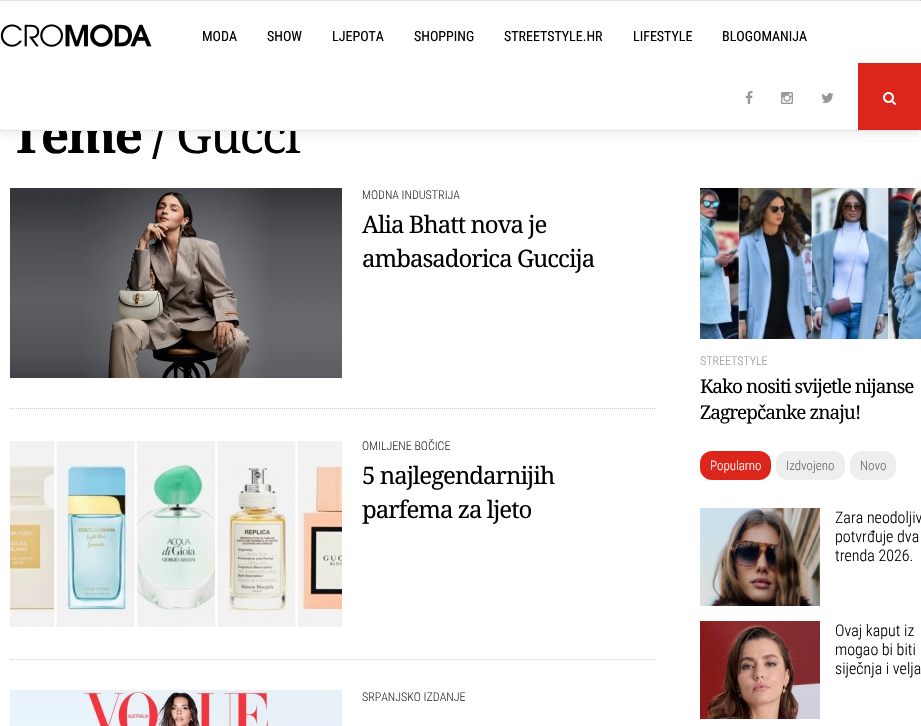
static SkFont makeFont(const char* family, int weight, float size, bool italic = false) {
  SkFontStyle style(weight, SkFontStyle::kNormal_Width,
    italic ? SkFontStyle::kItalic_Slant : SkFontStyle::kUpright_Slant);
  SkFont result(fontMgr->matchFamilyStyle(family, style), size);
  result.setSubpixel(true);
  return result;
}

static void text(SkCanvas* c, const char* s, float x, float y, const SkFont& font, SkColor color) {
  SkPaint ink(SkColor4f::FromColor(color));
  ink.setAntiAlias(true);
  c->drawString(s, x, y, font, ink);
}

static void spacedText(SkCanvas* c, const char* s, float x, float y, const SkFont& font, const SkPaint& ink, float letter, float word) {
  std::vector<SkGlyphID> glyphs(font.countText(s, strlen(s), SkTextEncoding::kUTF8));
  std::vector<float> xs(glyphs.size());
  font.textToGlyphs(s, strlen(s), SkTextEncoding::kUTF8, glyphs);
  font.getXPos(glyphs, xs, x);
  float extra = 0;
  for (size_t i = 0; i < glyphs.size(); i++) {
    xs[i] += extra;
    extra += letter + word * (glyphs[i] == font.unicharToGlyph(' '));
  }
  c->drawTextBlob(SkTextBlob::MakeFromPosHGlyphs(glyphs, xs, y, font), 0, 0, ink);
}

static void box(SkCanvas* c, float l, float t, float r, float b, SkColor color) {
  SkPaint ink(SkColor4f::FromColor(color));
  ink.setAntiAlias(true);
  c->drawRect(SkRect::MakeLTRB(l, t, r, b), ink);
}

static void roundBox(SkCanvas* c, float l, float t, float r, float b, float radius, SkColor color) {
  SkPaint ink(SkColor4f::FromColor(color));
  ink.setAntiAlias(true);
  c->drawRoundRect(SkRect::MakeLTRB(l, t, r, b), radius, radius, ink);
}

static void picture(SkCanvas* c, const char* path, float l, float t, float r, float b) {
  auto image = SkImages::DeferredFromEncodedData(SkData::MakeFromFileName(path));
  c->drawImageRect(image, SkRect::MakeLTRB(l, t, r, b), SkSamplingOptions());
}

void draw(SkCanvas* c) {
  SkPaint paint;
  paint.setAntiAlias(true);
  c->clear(0xffffffff);
  paint.setColor(0x0d000000);
  paint.setMaskFilter(SkMaskFilter::MakeBlur(kNormal_SkBlurStyle, 2.5f));
  c->drawRect(SkRect::MakeLTRB(0, 5, 921, 136), paint);
  paint.setMaskFilter(nullptr);
  SkFont face1 = makeFont("Noto Serif", 700, 50);
  paint.setColor(0xff000000);
  spacedText(c, "Teme /", 10, 153, face1, paint, -2, 0);
  SkFont face2 = makeFont("Noto Serif", 400, 50);
  spacedText(c, "Gucci", 176, 153, face2, paint, -2, 0);
  box(c, 0, 3, 921, 131, 0xffffffff);
  paint.setStyle(SkPaint::kStroke_Style);
  paint.setStrokeWidth(1);
  paint.setColor(0xffcccccc);
  paint.setPathEffect(SkDashPathEffect::Make({{1, 1}}, 0));
  c->drawPath(SkPathBuilder().moveTo(0, 0.5f).lineTo(921, 0.5f).detach(), paint);
  paint.setPathEffect(nullptr);
  paint.setPathEffect(SkDashPathEffect::Make({{1, 1}}, 0));
  c->drawPath(SkPathBuilder().moveTo(0, 130.5f).lineTo(921, 130.5f).detach(), paint);
  paint.setPathEffect(nullptr);
  picture(c, "img_01.png", 0, 24, 152, 47);
  SkFont face3 = makeFont("Roboto Condensed", 400, 14);
  text(c, "MODA", 202, 41, face3, 0xff000000);
  text(c, "SHOW", 267, 41, face3, 0xff000000);
  text(c, "LJEPOTA", 332, 41, face3, 0xff000000);
  text(c, "SHOPPING", 414, 41, face3, 0xff000000);
  text(c, "STREETSTYLE.HR", 504, 41, face3, 0xff000000);
  text(c, "LIFESTYLE", 633, 41, face3, 0xff000000);
  text(c, "BLOGOMANIJA", 722, 41, face3, 0xff000000);
  picture(c, "img_02.png", 745, 91, 753, 104);
  picture(c, "img_03.png", 781, 92, 793, 104);
  picture(c, "img_04.png", 821, 93, 834, 103);
  box(c, 858, 63, 921, 130, 0xffdc261b);
  picture(c, "img_05.png", 883, 92, 896, 105);
  picture(c, "img_06.png", 10, 188, 342, 378);
  SkFont face4 = makeFont("Roboto Condensed", 300, 12);
  text(c, "MODNA INDUSTRIJA", 362, 199, face4, 0xff333333);
  SkFont face5 = makeFont("Noto Serif", 400, 24);
  paint.setStyle(SkPaint::kFill_Style);
  paint.setColor(0xff000000);
  spacedText(c, "Alia Bhatt nova je", 362, 233, face5, paint, -1, 0);
  spacedText(c, "ambasadorica Guccija", 362, 267, face5, paint, -1, 0);
  paint.setStyle(SkPaint::kStroke_Style);
  paint.setColor(0xffcccccc);
  paint.setPathEffect(SkDashPathEffect::Make({{1, 1}}, 0));
  c->drawPath(SkPathBuilder().moveTo(10, 408.5f).lineTo(655, 408.5f).detach(), paint);
  paint.setPathEffect(nullptr);
  picture(c, "img_07.png", 10, 441, 342, 627);
  text(c, "OMILJENE BOČICE", 362, 450, face4, 0xff333333);
  paint.setStyle(SkPaint::kFill_Style);
  paint.setColor(0xff000000);
  spacedText(c, "5 najlegendarnijih", 362, 484, face5, paint, -1, 0);
  spacedText(c, "parfema za ljeto", 362, 518, face5, paint, -1, 0);
  paint.setStyle(SkPaint::kStroke_Style);
  paint.setColor(0xffcccccc);
  paint.setPathEffect(SkDashPathEffect::Make({{1, 1}}, 0));
  c->drawPath(SkPathBuilder().moveTo(10, 659.5f).lineTo(655, 659.5f).detach(), paint);
  paint.setPathEffect(nullptr);
  picture(c, "img_08.png", 10, 690, 342, 726);
  text(c, "SRPANJSKO IZDANJE", 362, 701, face4, 0xff333333);
  picture(c, "img_09.png", 700, 188, 921, 339);
  text(c, "STREETSTYLE", 700, 365, face4, 0xff999999);
  SkFont face6 = makeFont("Noto Serif", 400, 19);
  paint.setStyle(SkPaint::kFill_Style);
  paint.setColor(0xff000000);
  spacedText(c, "Kako nositi svijetle nijanse", 700, 393, face6, paint, -1, 0);
  spacedText(c, "Zagrepčanke znaju!", 700, 419, face6, paint, -1, 0);
  roundBox(c, 700, 451, 771, 480, 12, 0xffdc261b);
  SkFont face7 = makeFont("Roboto Condensed", 300, 13);
  text(c, "Popularno", 710, 470, face7, 0xffffffff);
  roundBox(c, 776, 451, 845, 480, 12, 0xffeeeeee);
  text(c, "Izdvojeno", 786, 470, face7, 0xff666666);
  roundBox(c, 850, 451, 896, 480, 12, 0xffeeeeee);
  text(c, "Novo", 860, 470, face7, 0xff666666);
  picture(c, "img_10.png", 700, 508, 820, 606);
  SkFont face8 = makeFont("Roboto Condensed", 300, 16);
  text(c, "Zara neodoljiv", 835, 523, face8, 0xff000000);
  text(c, "potvrđuje dva", 835, 542, face8, 0xff000000);
  text(c, "trenda 2026.", 835, 561, face8, 0xff000000);
  picture(c, "img_11.png", 700, 621, 820, 719);
  text(c, "Ovaj kaput iz", 835, 636, face8, 0xff000000);
  text(c, "mogao bi biti", 835, 655, face8, 0xff000000);
  text(c, "siječnja i velja", 835, 674, face8, 0xff000000);
}
